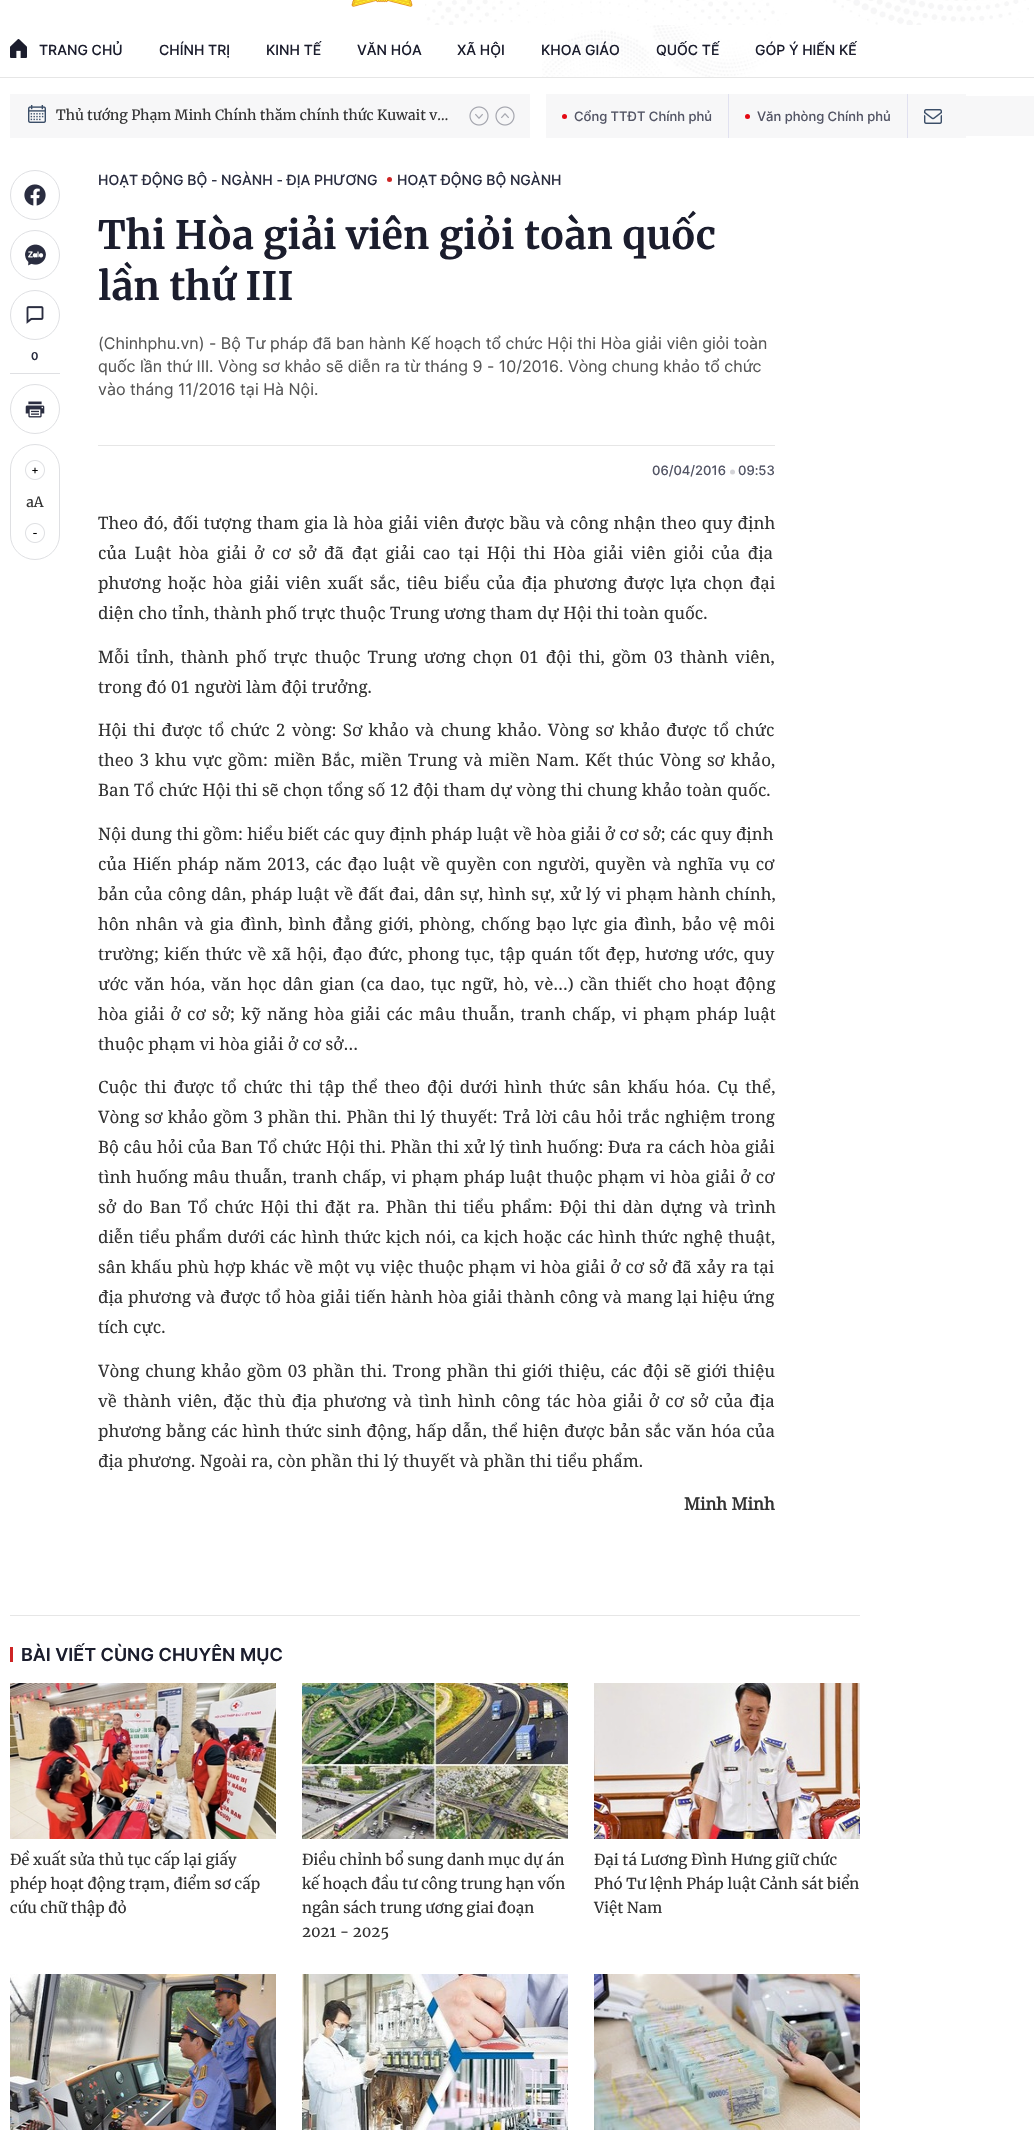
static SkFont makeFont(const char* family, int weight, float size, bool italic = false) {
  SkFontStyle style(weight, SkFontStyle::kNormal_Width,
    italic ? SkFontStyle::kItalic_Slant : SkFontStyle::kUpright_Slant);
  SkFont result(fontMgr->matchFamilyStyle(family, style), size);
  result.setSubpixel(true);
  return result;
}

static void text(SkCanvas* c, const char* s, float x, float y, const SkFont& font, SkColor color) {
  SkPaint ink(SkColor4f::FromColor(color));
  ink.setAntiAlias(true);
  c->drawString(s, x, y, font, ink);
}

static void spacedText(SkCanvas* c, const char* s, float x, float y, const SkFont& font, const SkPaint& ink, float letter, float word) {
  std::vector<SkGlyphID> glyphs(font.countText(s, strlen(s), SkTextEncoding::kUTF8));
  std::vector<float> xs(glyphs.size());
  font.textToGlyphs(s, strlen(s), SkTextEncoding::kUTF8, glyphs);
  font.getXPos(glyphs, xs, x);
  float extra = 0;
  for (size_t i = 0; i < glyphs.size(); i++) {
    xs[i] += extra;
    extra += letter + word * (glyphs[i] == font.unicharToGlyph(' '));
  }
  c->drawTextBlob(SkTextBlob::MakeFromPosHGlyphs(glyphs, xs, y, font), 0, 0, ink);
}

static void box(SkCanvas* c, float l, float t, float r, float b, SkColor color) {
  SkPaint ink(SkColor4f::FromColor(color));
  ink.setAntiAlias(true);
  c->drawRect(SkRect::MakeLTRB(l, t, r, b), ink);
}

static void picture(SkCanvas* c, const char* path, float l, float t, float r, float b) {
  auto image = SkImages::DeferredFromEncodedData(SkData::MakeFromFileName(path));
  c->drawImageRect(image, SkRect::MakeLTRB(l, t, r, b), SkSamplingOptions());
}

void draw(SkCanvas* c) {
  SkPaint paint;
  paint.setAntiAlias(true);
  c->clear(0xffffffff);
  box(c, 0, 77, 1034, 78, 0xffe6e6e6);
  picture(c, "img_01.png", 425, 0, 1029, 25);
  picture(c, "img_02.png", 351, 0, 413, 7);
  picture(c, "img_03.png", 542, 25, 771, 77);
  picture(c, "img_04.png", 10, 39, 27, 58);
  SkFont face1 = makeFont("Inter", 500, 14);
  text(c, "TRANG CHỦ", 39, 55, face1, 0xff1b1d2d);
  text(c, "CHÍNH TRỊ", 159, 55, face1, 0xff1b1d2d);
  text(c, "KINH TẾ", 266, 55, face1, 0xff1b1d2d);
  text(c, "VĂN HÓA", 357, 55, face1, 0xff1b1d2d);
  text(c, "XÃ HỘI", 457, 55, face1, 0xff1b1d2d);
  text(c, "KHOA GIÁO", 541, 55, face1, 0xff1b1d2d);
  text(c, "QUỐC TẾ", 656, 55, face1, 0xff1b1d2d);
  text(c, "GÓP Ý HIẾN KẾ", 755, 55, face1, 0xff1b1d2d);
  box(c, 10, 94, 530, 138, 0xfff7f7f8);
  picture(c, "img_05.png", 28, 105, 46, 123);
  SkFont face2 = makeFont("Merriweather", 400, 14);
  text(c, "Thủ tướng Phạm Minh Chính thăm chính thức Kuwait v…", 56, 120, face2, 0xff333333);
  picture(c, "img_06.png", 469, 106, 489, 126);
  picture(c, "img_07.png", 495, 106, 515, 126);
  box(c, 546, 94, 966, 138, 0xfff7f7f8);
  box(c, 728, 94, 729, 138, 0xffe1e1f0);
  paint.setColor(0xffe40913);
  c->drawCircle(564.5f, 116.5f, 2.5f, paint);
  SkFont face3 = makeFont("Inter", 500, 13);
  text(c, "Cổng TTĐT Chính phủ", 574, 121, face3, 0xff535565);
  box(c, 907, 94, 908, 138, 0xffe1e1f0);
  c->drawCircle(747.5f, 116.5f, 2.5f, paint);
  text(c, "Văn phòng Chính phủ", 757, 121, face3, 0xff535565);
  picture(c, "img_08.png", 924, 109, 942, 124);
  box(c, 966, 96, 1034, 136, 0xfff7f7f8);
  paint.setStyle(SkPaint::kStroke_Style);
  paint.setStrokeWidth(1);
  paint.setColor(0xffdfe0e3);
  c->drawCircle(35, 195, 24.5f, paint);
  picture(c, "img_09.png", 24, 184, 46, 206);
  c->drawCircle(35, 255, 24.5f, paint);
  picture(c, "img_10.png", 25, 244, 46, 266);
  c->drawCircle(35, 315, 24.5f, paint);
  picture(c, "img_11.png", 26, 306, 44, 324);
  box(c, 10, 373, 60, 374, 0xffdfe0e3);
  SkFont face4 = makeFont("Inter", 600, 11);
  text(c, "0", 31, 360, face4, 0xff2a2d40);
  c->drawCircle(35, 409, 24.5f, paint);
  picture(c, "img_12.png", 25, 401, 45, 418);
  c->drawRoundRect(SkRect::MakeLTRB(10.5f, 444.5f, 59.5f, 559.5f), 24.5f, 24.5f, paint);
  picture(c, "img_13.png", 25, 460, 45, 480);
  text(c, "aA", 26, 507, face2, 0xff333333);
  picture(c, "img_14.png", 25, 523, 45, 543);
  text(c, "HOẠT ĐỘNG BỘ - NGÀNH - ĐỊA PHƯƠNG", 98, 185, face1, 0xff2a2d40);
  paint.setStyle(SkPaint::kFill_Style);
  paint.setColor(0xffce2424);
  c->drawCircle(389.5f, 179.5f, 2.5f, paint);
  text(c, "HOẠT ĐỘNG BỘ NGÀNH", 397, 185, face1, 0xff2a2d40);
  SkFont face5 = makeFont("Merriweather", 700, 39);
  text(c, "Thi Hòa giải viên giỏi toàn quốc", 98, 249, face5, 0xff1b1d2d);
  text(c, "lần thứ III", 98, 300, face5, 0xff1b1d2d);
  SkFont face6 = makeFont("Inter", 400, 16);
  text(c, "(Chinhphu.vn) - Bộ Tư pháp đã ban hành Kế hoạch tổ chức Hội thi Hòa giải viên giỏi toàn", 98, 349, face6, 0xff555555);
  text(c, "quốc lần thứ III. Vòng sơ khảo sẽ diễn ra từ tháng 9 - 10/2016. Vòng chung khảo tổ chức", 98, 372, face6, 0xff555555);
  text(c, "vào tháng 11/2016 tại Hà Nội.", 98, 395, face6, 0xff555555);
  box(c, 98, 445, 775, 446, 0xffe6e6e6);
  text(c, "06/04/2016", 652, 475, face3, 0xff535565);
  paint.setColor(0xffd3d3d7);
  c->drawCircle(732.5f, 472, 2.5f, paint);
  text(c, "09:53", 738, 475, face3, 0xff535565);
  SkFont face7 = makeFont("Noto Serif", 400, 17);
  paint.setColor(0xff333333);
  spacedText(c, "Theo đó, đối tượng tham gia là hòa giải viên được bầu và công nhận theo quy định", 98, 529, face7, paint, 0, 0.7f);
  spacedText(c, "của Luật hòa giải ở cơ sở đã đạt giải cao tại Hội thi Hòa giải viên giỏi của địa", 98, 559, face7, paint, 0, 3.25f);
  spacedText(c, "phương hoặc hòa giải viên xuất sắc, tiêu biểu của địa phương được lựa chọn đại", 98, 589, face7, paint, 0, 2.1f);
  text(c, "diện cho tỉnh, thành phố trực thuộc Trung ương tham dự Hội thi toàn quốc.", 98, 619, face7, 0xff333333);
  spacedText(c, "Mỗi tỉnh, thành phố trực thuộc Trung ương chọn 01 đội thi, gồm 03 thành viên,", 98, 663, face7, paint, 0, 2.6f);
  text(c, "trong đó 01 người làm đội trưởng.", 98, 693, face7, 0xff333333);
  spacedText(c, "Hội thi được tổ chức 2 vòng: Sơ khảo và chung khảo. Vòng sơ khảo được tổ chức", 98, 736, face7, paint, 0, 1.9f);
  spacedText(c, "theo 3 khu vực gồm: miền Bắc, miền Trung và miền Nam. Kết thúc Vòng sơ khảo,", 98, 766, face7, paint, 0, 1.5f);
  text(c, "Ban Tổ chức Hội thi sẽ chọn tổng số 12 đội tham dự vòng thi chung khảo toàn quốc.", 98, 796, face7, 0xff333333);
  text(c, "Nội dung thi gồm: hiểu biết các quy định pháp luật về hòa giải ở cơ sở; các quy định", 98, 840, face7, 0xff333333);
  spacedText(c, "của Hiến pháp năm 2013, các đạo luật về quyền con người, quyền và nghĩa vụ cơ", 98, 870, face7, paint, 0, 1.5f);
  spacedText(c, "bản của công dân, pháp luật về đất đai, dân sự, hình sự, xử lý vi phạm hành chính,", 98, 900, face7, paint, 0, 0.6f);
  spacedText(c, "hôn nhân và gia đình, bình đẳng giới, phòng, chống bạo lực gia đình, bảo vệ môi", 98, 930, face7, paint, 0, 1.8f);
  spacedText(c, "trường; kiến thức về xã hội, đạo đức, phong tục, tập quán tốt đẹp, hương ước, quy", 98, 960, face7, paint, 0, 1.1f);
  spacedText(c, "ước văn hóa, văn học dân gian (ca dao, tục ngữ, hò, vè…) cần thiết cho hoạt động", 98, 990, face7, paint, 0, 1.6f);
  spacedText(c, "hòa giải ở cơ sở; kỹ năng hòa giải các mâu thuẫn, tranh chấp, vi phạm pháp luật", 98, 1020, face7, paint, 0, 1.9f);
  text(c, "thuộc phạm vi hòa giải ở cơ sở…", 98, 1050, face7, 0xff333333);
  spacedText(c, "Cuộc thi được tổ chức thi tập thể theo đội dưới hình thức sân khấu hóa. Cụ thể,", 98, 1093, face7, paint, 0, 2.5f);
  spacedText(c, "Vòng sơ khảo gồm 3 phần thi. Phần thi lý thuyết: Trả lời câu hỏi trắc nghiệm trong", 98, 1123, face7, paint, 0, 0.75f);
  spacedText(c, "Bộ câu hỏi của Ban Tổ chức Hội thi. Phần thi xử lý tình huống: Đưa ra cách hòa giải", 98, 1153, face7, paint, 0, 0.25f);
  spacedText(c, "tình huống mâu thuẫn, tranh chấp, vi phạm pháp luật thuộc phạm vi hòa giải ở cơ", 98, 1183, face7, paint, 0, 0.75f);
  spacedText(c, "sở do Ban Tổ chức Hội thi đặt ra. Phần thi tiểu phẩm: Đội thi dàn dựng và trình", 98, 1213, face7, paint, 0, 2.25f);
  spacedText(c, "diễn tiểu phẩm dưới các hình thức kịch nói, ca kịch hoặc các hình thức nghệ thuật,", 98, 1243, face7, paint, 0, 0.6f);
  spacedText(c, "sân khấu phù hợp khác về một vụ việc thuộc phạm vi hòa giải ở cơ sở đã xảy ra tại", 98, 1273, face7, paint, 0, 0.5f);
  spacedText(c, "địa phương và được tổ hòa giải tiến hành hòa giải thành công và mang lại hiệu ứng", 98, 1303, face7, paint, 0, 0.25f);
  text(c, "tích cực.", 98, 1333, face7, 0xff333333);
  spacedText(c, "Vòng chung khảo gồm 03 phần thi. Trong phần thi giới thiệu, các đội sẽ giới thiệu", 98, 1377, face7, paint, 0, 1.4f);
  spacedText(c, "về thành viên, đặc thù địa phương và tình hình công tác hòa giải ở cơ sở của địa", 98, 1407, face7, paint, 0, 1.8f);
  spacedText(c, "phương bằng các hình thức sinh động, hấp dẫn, thể hiện được bản sắc văn hóa của", 98, 1437, face7, paint, 0, 0.5f);
  text(c, "địa phương. Ngoài ra, còn phần thi lý thuyết và phần thi tiểu phẩm.", 98, 1467, face7, 0xff333333);
  SkFont face8 = makeFont("Noto Serif", 700, 17);
  text(c, "Minh Minh", 684, 1510, face8, 0xff333333);
  box(c, 10, 1615, 860, 1616, 0xffe6e6e6);
  box(c, 10, 1647, 13, 1662, 0xffce2424);
  SkFont face9 = makeFont("Inter", 600, 18);
  text(c, "BÀI VIẾT CÙNG CHUYÊN MỤC", 21, 1661, face9, 0xff1b1d2d);
  picture(c, "img_15.png", 10, 1683, 276, 1839);
  SkFont face10 = makeFont("Merriweather", 400, 15);
  text(c, "Đề xuất sửa thủ tục cấp lại giấy", 10, 1865, face10, 0xff333333);
  text(c, "phép hoạt động trạm, điểm sơ cấp", 10, 1889, face10, 0xff333333);
  text(c, "cứu chữ thập đỏ", 10, 1913, face10, 0xff333333);
  picture(c, "img_16.png", 302, 1683, 568, 1839);
  text(c, "Điều chỉnh bổ sung danh mục dự án", 302, 1865, face10, 0xff333333);
  text(c, "kế hoạch đầu tư công trung hạn vốn", 302, 1889, face10, 0xff333333);
  text(c, "ngân sách trung ương giai đoạn", 302, 1913, face10, 0xff333333);
  text(c, "2021 - 2025", 302, 1937, face10, 0xff333333);
  picture(c, "img_17.png", 594, 1683, 860, 1839);
  text(c, "Đại tá Lương Đình Hưng giữ chức", 594, 1865, face10, 0xff333333);
  text(c, "Phó Tư lệnh Pháp luật Cảnh sát biển", 594, 1889, face10, 0xff333333);
  text(c, "Việt Nam", 594, 1913, face10, 0xff333333);
  picture(c, "img_18.png", 10, 1974, 276, 2130);
  picture(c, "img_19.png", 302, 1974, 568, 2130);
  picture(c, "img_20.png", 594, 1974, 860, 2130);
}
